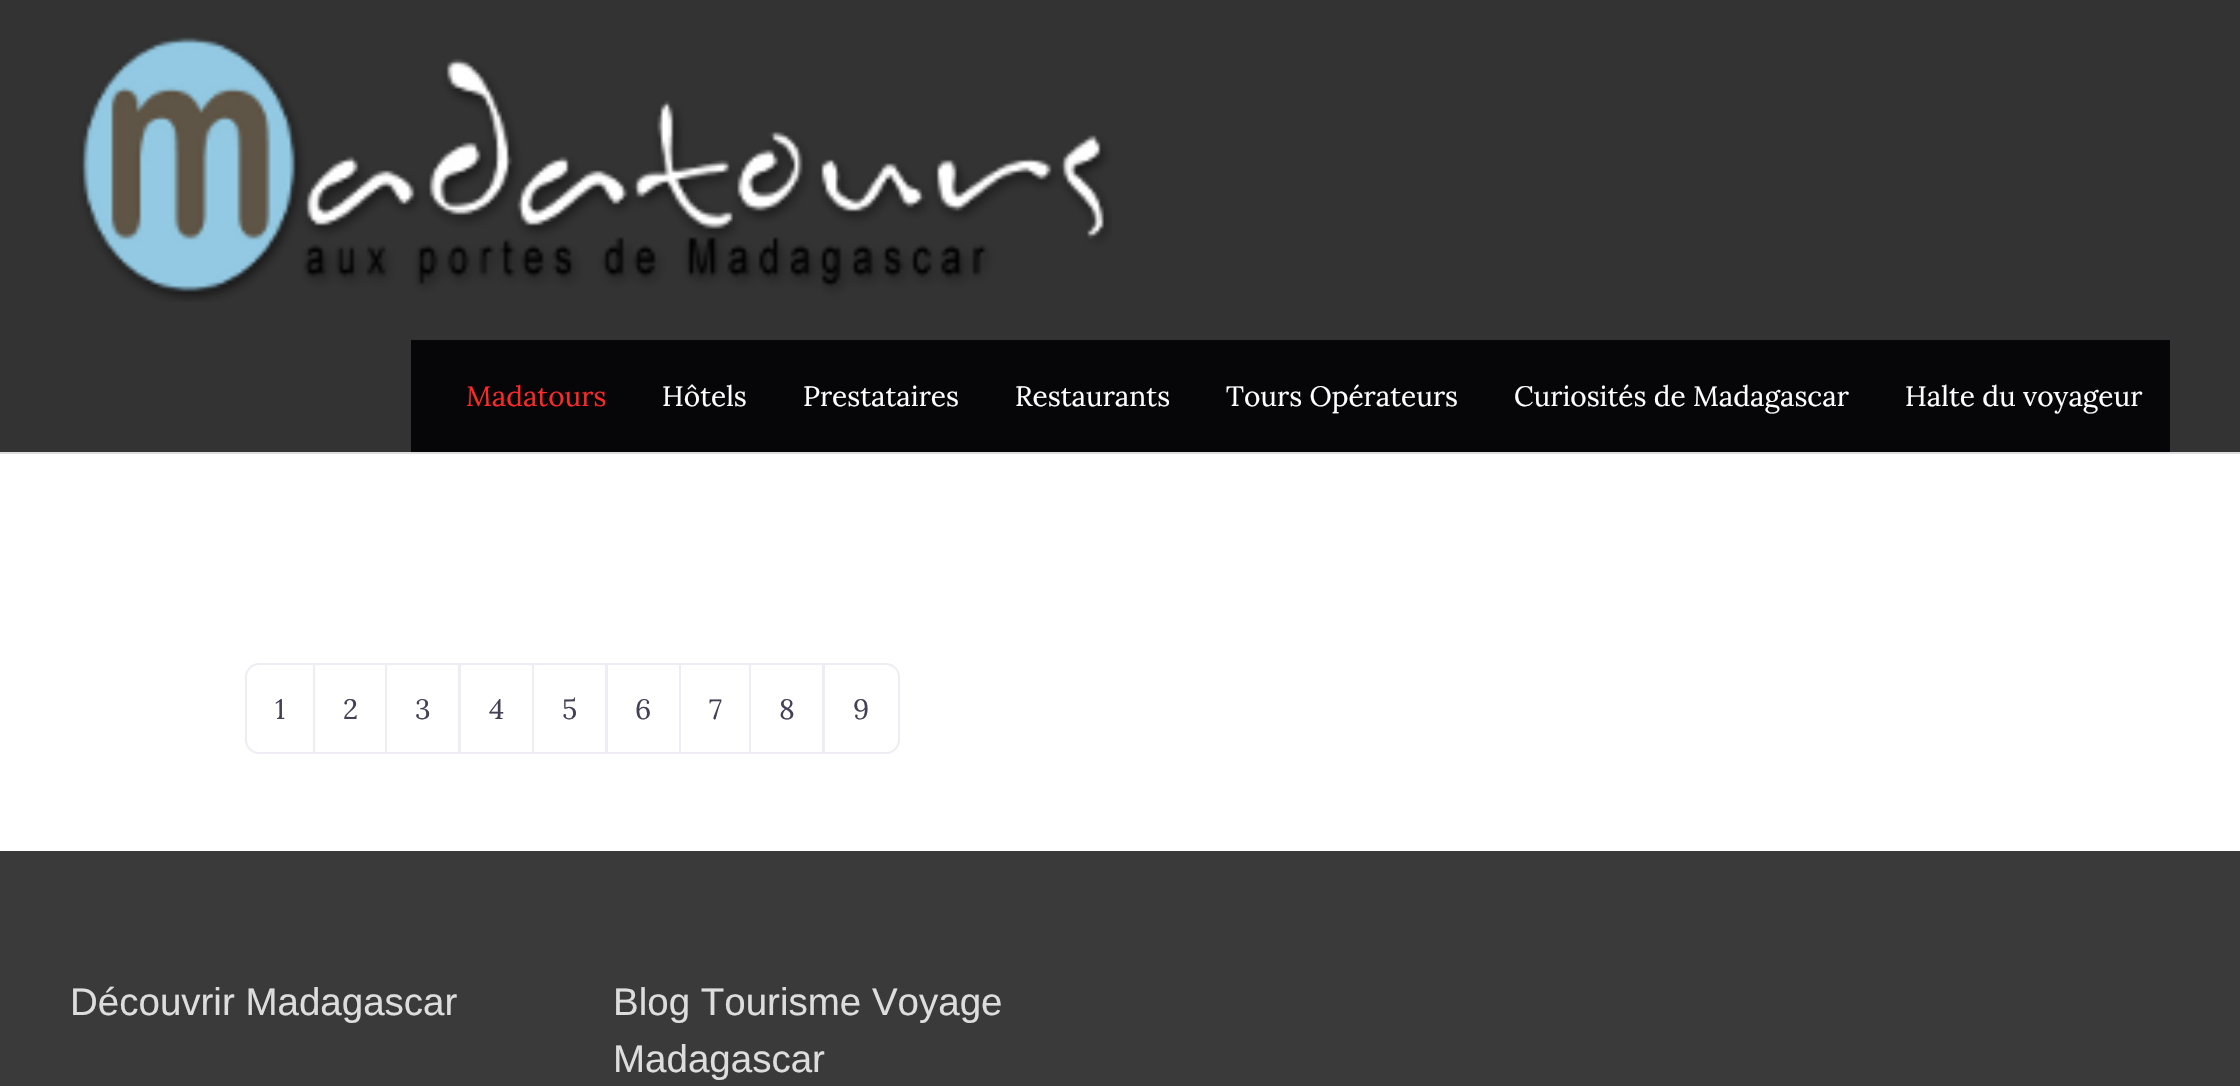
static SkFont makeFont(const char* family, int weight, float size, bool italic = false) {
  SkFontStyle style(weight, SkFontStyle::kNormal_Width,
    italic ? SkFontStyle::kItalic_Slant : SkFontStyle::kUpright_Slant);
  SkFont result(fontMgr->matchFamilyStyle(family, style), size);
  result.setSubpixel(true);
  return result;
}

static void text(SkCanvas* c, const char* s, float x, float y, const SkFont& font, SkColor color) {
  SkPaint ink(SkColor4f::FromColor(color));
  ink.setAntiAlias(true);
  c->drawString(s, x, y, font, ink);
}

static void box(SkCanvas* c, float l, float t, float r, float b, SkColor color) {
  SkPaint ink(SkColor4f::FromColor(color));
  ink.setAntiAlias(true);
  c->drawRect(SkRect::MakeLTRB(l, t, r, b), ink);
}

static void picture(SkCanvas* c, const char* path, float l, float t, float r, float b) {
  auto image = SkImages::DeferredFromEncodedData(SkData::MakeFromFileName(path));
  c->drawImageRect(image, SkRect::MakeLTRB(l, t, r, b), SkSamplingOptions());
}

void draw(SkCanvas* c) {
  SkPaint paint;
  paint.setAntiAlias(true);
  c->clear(0xffffffff);
  box(c, 0, 0, 2240, 452, 0xff333333);
  box(c, 0, 452, 2240, 454, 0xffdddddd);
  picture(c, "img_01.png", 79, 37, 1112, 302);
  box(c, 411, 340, 2170, 452, 0xff060608);
  SkFont face1 = makeFont("Lora", 400, 28);
  text(c, "Madatours", 466, 406, face1, 0xffff2828);
  text(c, "Hôtels", 662, 406, face1, 0xffffffff);
  text(c, "Prestataires", 803, 406, face1, 0xffffffff);
  text(c, "Restaurants", 1015, 406, face1, 0xffffffff);
  text(c, "Tours Opérateurs", 1226, 406, face1, 0xffffffff);
  text(c, "Curiosités de Madagascar", 1514, 406, face1, 0xffffffff);
  text(c, "Halte du voyageur", 1905, 406, face1, 0xffffffff);
  paint.setStyle(SkPaint::kStroke_Style);
  paint.setStrokeWidth(2);
  paint.setColor(0xffefecf3);
  c->drawPath(SkPathBuilder().moveTo(259, 664).lineTo(314, 664).lineTo(314, 753).lineTo(259, 753).cubicTo(252, 753, 246, 747, 246, 740).lineTo(246, 677).cubicTo(246, 670, 252, 664, 259, 664).close().detach(), paint);
  text(c, "1", 275, 719, face1, 0xff454056);
  c->drawRect(SkRect::MakeLTRB(314, 664, 386, 753), paint);
  text(c, "2", 343, 719, face1, 0xff454056);
  c->drawRect(SkRect::MakeLTRB(386, 664, 459, 753), paint);
  text(c, "3", 415, 719, face1, 0xff454056);
  c->drawRect(SkRect::MakeLTRB(460, 664, 533, 753), paint);
  text(c, "4", 489, 719, face1, 0xff454056);
  c->drawRect(SkRect::MakeLTRB(533, 664, 606, 753), paint);
  text(c, "5", 562, 719, face1, 0xff454056);
  c->drawRect(SkRect::MakeLTRB(607, 664, 680, 753), paint);
  text(c, "6", 635, 719, face1, 0xff454056);
  c->drawRect(SkRect::MakeLTRB(680, 664, 750, 753), paint);
  text(c, "7", 709, 719, face1, 0xff454056);
  c->drawRect(SkRect::MakeLTRB(750, 664, 823, 753), paint);
  text(c, "8", 779, 719, face1, 0xff454056);
  c->drawPath(SkPathBuilder().moveTo(824, 664).lineTo(886, 664).cubicTo(893, 664, 899, 670, 899, 677).lineTo(899, 740).cubicTo(899, 747, 893, 753, 886, 753).lineTo(824, 753).close().detach(), paint);
  text(c, "9", 853, 719, face1, 0xff454056);
  box(c, 0, 851, 2240, 1086, 0xff3a3a3a);
  SkFont face2 = makeFont("Liberation Sans", 400, 38.5f);
  text(c, "Découvrir Madagascar", 70, 1015, face2, 0xffdddddd);
  text(c, "Blog Tourisme Voyage", 613, 1015, face2, 0xffdddddd);
  text(c, "Madagascar", 613, 1072, face2, 0xffdddddd);
}
